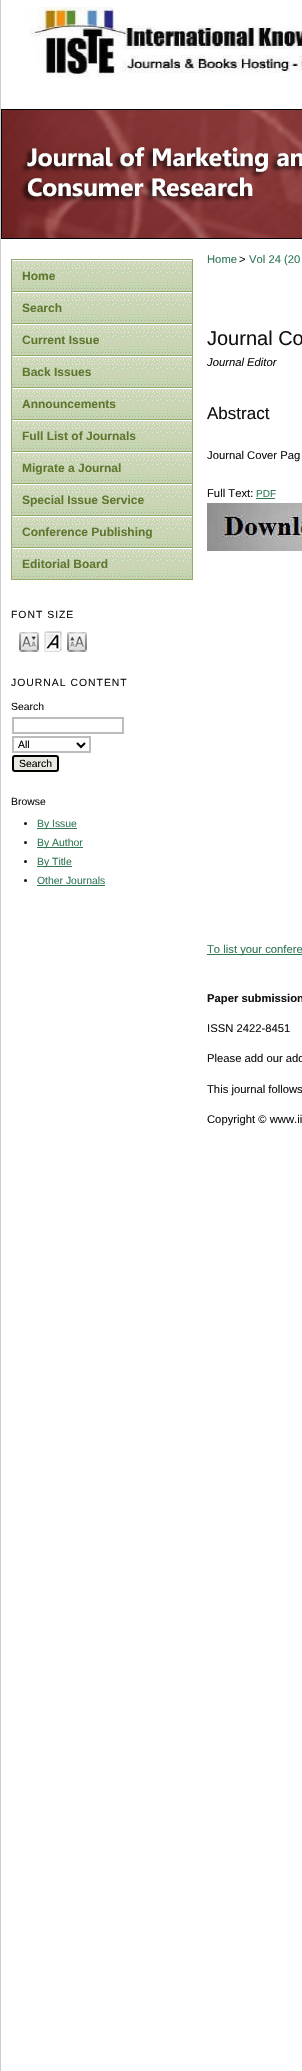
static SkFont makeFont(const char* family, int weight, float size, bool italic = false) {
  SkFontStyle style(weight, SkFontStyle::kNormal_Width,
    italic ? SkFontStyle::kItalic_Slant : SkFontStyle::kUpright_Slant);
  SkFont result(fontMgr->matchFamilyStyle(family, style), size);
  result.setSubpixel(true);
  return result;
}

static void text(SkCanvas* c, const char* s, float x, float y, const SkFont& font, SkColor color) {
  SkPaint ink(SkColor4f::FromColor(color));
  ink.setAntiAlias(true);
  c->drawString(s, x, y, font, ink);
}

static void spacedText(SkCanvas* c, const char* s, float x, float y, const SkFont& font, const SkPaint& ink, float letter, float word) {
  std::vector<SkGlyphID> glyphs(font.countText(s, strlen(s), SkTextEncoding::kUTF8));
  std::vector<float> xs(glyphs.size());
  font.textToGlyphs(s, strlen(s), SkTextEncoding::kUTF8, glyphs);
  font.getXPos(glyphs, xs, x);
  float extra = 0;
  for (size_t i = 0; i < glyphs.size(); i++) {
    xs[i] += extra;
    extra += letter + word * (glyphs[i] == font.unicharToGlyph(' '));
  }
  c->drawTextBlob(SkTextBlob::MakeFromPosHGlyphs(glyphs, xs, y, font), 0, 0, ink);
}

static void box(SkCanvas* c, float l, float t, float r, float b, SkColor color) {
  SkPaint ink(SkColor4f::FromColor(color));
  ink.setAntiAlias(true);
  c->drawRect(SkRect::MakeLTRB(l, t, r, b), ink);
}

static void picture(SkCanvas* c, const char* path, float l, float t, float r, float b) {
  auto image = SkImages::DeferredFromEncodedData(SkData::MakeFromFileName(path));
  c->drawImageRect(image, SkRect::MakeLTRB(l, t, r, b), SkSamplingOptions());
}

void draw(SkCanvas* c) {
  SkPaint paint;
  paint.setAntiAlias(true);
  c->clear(0xffffffff);
  box(c, 0, 0, 1, 2071, 0xffcccccc);
  picture(c, "img_01.png", 29, 7, 302, 79);
  picture(c, "img_02.png", 1, 109, 302, 239);
  box(c, 11, 259, 193, 260, 0xff94aa74);
  box(c, 192, 259, 193, 580, 0xff94aa74);
  box(c, 11, 259, 12, 580, 0xff94aa74);
  picture(c, "img_03.png", 12, 261, 192, 292);
  SkFont face1 = makeFont("Liberation Sans", 700, 12);
  text(c, "Home", 22, 280, face1, 0xff5e7830);
  picture(c, "img_03.png", 12, 293, 192, 324);
  text(c, "Search", 22, 312, face1, 0xff5e7830);
  picture(c, "img_03.png", 12, 325, 192, 356);
  text(c, "Current Issue", 22, 344, face1, 0xff5e7830);
  picture(c, "img_03.png", 12, 357, 192, 388);
  text(c, "Back Issues", 22, 376, face1, 0xff5e7830);
  picture(c, "img_03.png", 12, 389, 192, 420);
  text(c, "Announcements", 22, 408, face1, 0xff5e7830);
  picture(c, "img_03.png", 12, 421, 192, 452);
  text(c, "Full List of Journals", 22, 440, face1, 0xff5e7830);
  picture(c, "img_03.png", 12, 453, 192, 484);
  text(c, "Migrate a Journal", 22, 472, face1, 0xff5e7830);
  picture(c, "img_03.png", 12, 485, 192, 516);
  text(c, "Special Issue Service", 22, 504, face1, 0xff5e7830);
  picture(c, "img_03.png", 12, 517, 192, 548);
  text(c, "Conference Publishing", 22, 536, face1, 0xff5e7830);
  picture(c, "img_03.png", 12, 549, 192, 580);
  text(c, "Editorial Board", 22, 568, face1, 0xff5e7830);
  SkFont face2 = makeFont("Liberation Sans", 400, 10.4f);
  paint.setColor(0xff111111);
  spacedText(c, "FONT SIZE", 11, 618, face2, paint, 1, 0);
  picture(c, "img_04.png", 19, 632, 39, 652);
  picture(c, "img_05.png", 44, 631, 62, 652);
  picture(c, "img_06.png", 67, 632, 87, 652);
  spacedText(c, "JOURNAL CONTENT", 11, 686, face2, paint, 1, 0);
  text(c, "Search", 11, 710, face2, 0xff111111);
  paint.setStyle(SkPaint::kStroke_Style);
  paint.setStrokeWidth(2);
  paint.setColor(0xffbdbdbd);
  c->drawRect(SkRect::MakeLTRB(13, 718, 123, 733), paint);
  c->drawRect(SkRect::MakeLTRB(13, 737, 90, 752), paint);
  paint.setColor(0xff000000);
  c->drawPath(SkPathBuilder().moveTo(77, 743).lineTo(81, 747).lineTo(85, 743).detach(), paint);
  text(c, "All", 18, 748, face2, 0xff000000);
  paint.setStyle(SkPaint::kFill_Style);
  paint.setColor(0xffe8e8e1);
  c->drawRoundRect(SkRect::MakeLTRB(13, 756, 58, 771), 2, 2, paint);
  paint.setStyle(SkPaint::kStroke_Style);
  paint.setColor(0xff000000);
  c->drawRoundRect(SkRect::MakeLTRB(13, 756, 58, 771), 2, 2, paint);
  text(c, "Search", 19, 767, face2, 0xff000000);
  text(c, "Browse", 11, 805, face2, 0xff111111);
  paint.setStyle(SkPaint::kFill_Style);
  paint.setColor(0xff111111);
  c->drawCircle(25.5f, 823.5f, 1.5f, paint);
  box(c, 37, 828, 77, 829, 0xff337755);
  text(c, "By Issue", 37, 827, face2, 0xff337755);
  c->drawCircle(25.5f, 842.5f, 1.5f, paint);
  box(c, 37, 847, 83, 848, 0xff337755);
  text(c, "By Author", 37, 846, face2, 0xff337755);
  c->drawCircle(25.5f, 861.5f, 1.5f, paint);
  box(c, 37, 866, 72, 867, 0xff337755);
  text(c, "By Title", 37, 865, face2, 0xff337755);
  c->drawCircle(25.5f, 880.5f, 1.5f, paint);
  text(c, "Other Journals", 37, 884, face2, 0xff337755);
  box(c, 37, 885, 105, 886, 0xff337755);
  SkFont face3 = makeFont("Liberation Sans", 400, 11.25f);
  text(c, "Home", 207, 263, face3, 0xff337755);
  text(c, ">", 239, 263, face3, 0xff111111);
  text(c, "Vol 24 (20", 249, 263, face3, 0xff337755);
  SkFont face4 = makeFont("Liberation Sans", 400, 20);
  text(c, "Journal Co", 207, 345, face4, 0xff111111);
  SkFont face5 = makeFont("Liberation Sans", 400, 11.25f, true);
  text(c, "Journal Editor", 207, 366, face5, 0xff111111);
  SkFont face6 = makeFont("Liberation Sans", 400, 17);
  text(c, "Abstract", 207, 419, face6, 0xff111111);
  text(c, "Journal Cover Pag", 207, 459, face3, 0xff111111);
  text(c, "Full Text:", 207, 497, face3, 0xff111111);
  SkFont face7 = makeFont("Liberation Sans", 400, 10);
  text(c, "PDF", 256, 497, face7, 0xff337755);
  box(c, 256, 498, 275, 499, 0xff337755);
  picture(c, "img_07.png", 207, 503, 302, 551);
  box(c, 207, 954, 302, 955, 0xff337755);
  text(c, "To list your confere", 207, 953, face3, 0xff337755);
  SkFont face8 = makeFont("Liberation Sans", 700, 11.25f);
  text(c, "Paper submission", 207, 1002, face8, 0xff111111);
  text(c, "ISSN 2422-8451", 207, 1032, face3, 0xff111111);
  text(c, "Please add our add", 207, 1062, face3, 0xff111111);
  text(c, "This journal follows", 207, 1093, face3, 0xff111111);
  text(c, "Copyright © www.ii", 207, 1123, face3, 0xff111111);
}
